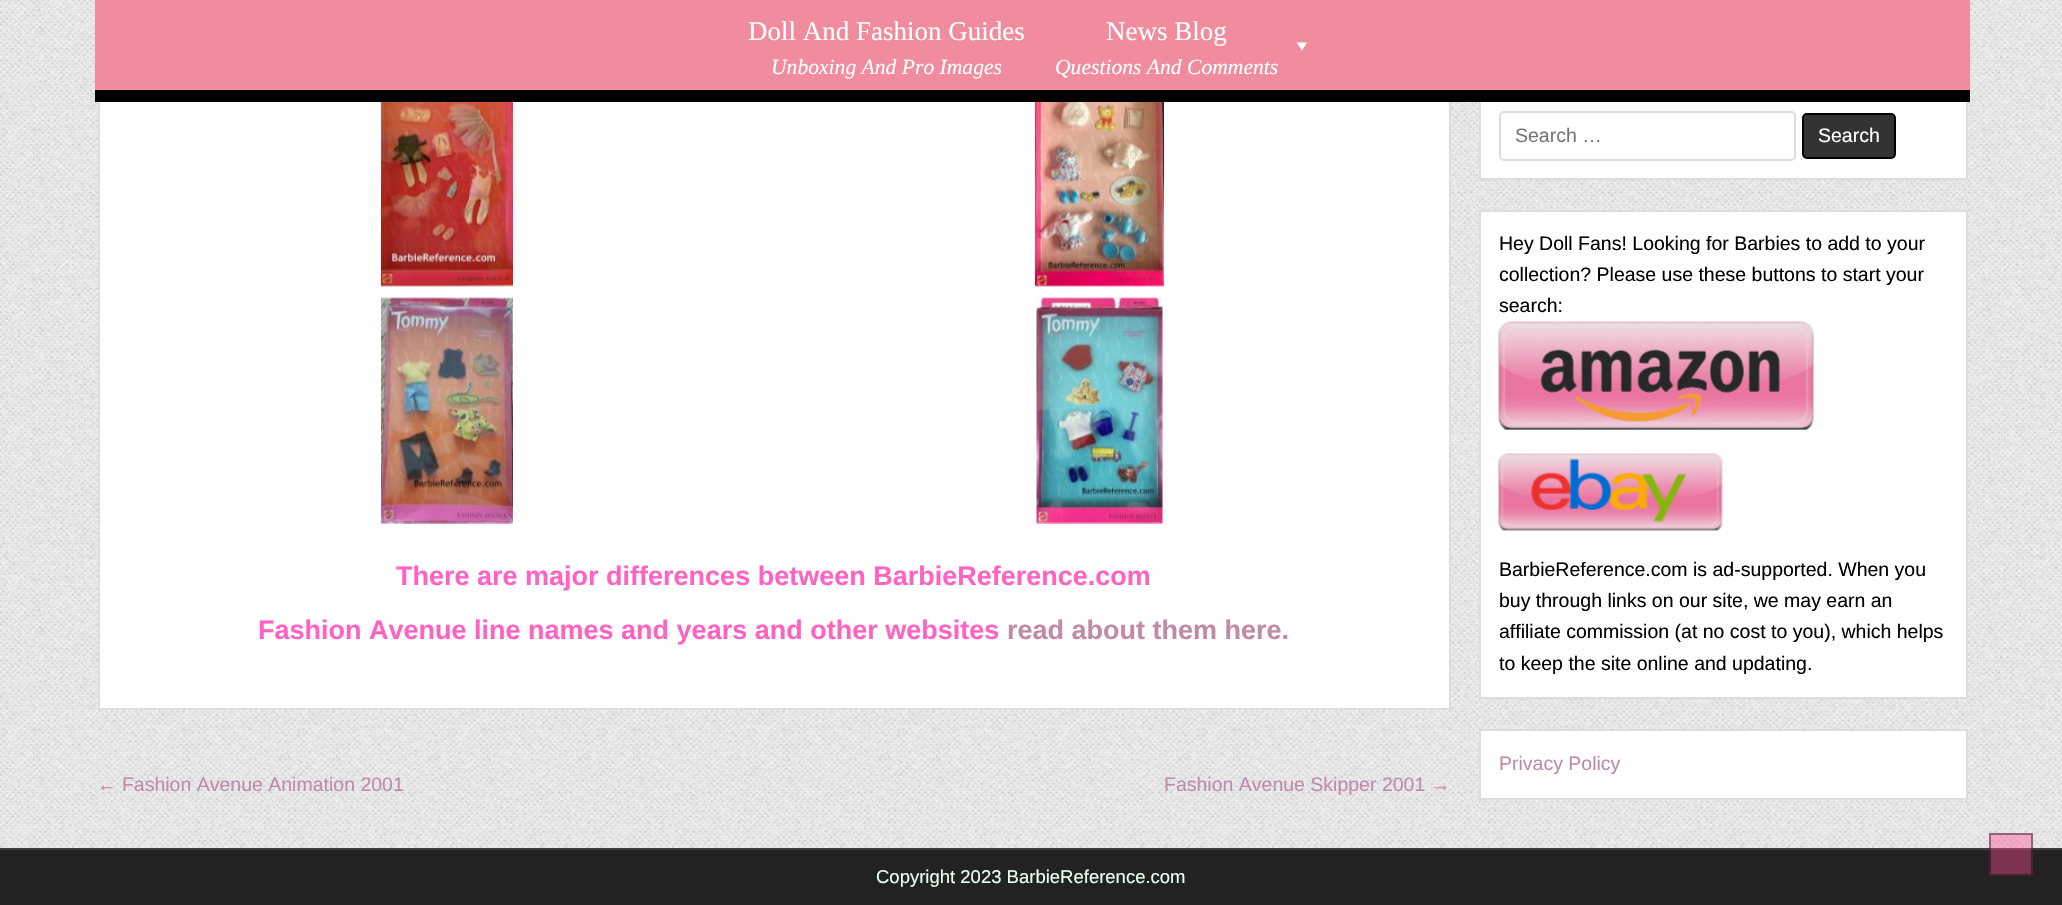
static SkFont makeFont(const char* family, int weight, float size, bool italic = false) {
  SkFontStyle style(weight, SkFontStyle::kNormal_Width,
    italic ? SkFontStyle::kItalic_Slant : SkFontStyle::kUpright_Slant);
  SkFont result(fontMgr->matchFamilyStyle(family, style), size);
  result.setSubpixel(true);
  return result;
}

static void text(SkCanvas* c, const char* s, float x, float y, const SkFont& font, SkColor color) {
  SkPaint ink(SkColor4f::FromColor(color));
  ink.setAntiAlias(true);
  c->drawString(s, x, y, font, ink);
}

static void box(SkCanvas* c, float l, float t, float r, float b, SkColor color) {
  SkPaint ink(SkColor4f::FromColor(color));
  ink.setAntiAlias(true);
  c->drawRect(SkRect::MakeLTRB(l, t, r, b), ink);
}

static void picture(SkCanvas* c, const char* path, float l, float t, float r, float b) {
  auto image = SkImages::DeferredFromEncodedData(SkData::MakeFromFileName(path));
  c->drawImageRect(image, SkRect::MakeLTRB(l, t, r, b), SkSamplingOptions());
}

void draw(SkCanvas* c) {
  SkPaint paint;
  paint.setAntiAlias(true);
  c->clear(0xffffffff);
  picture(c, "img_01.png", 0, 0, 2062, 848);
  box(c, 100, 102, 1449, 708, 0xffffffff);
  paint.setStyle(SkPaint::kStroke_Style);
  paint.setStrokeWidth(2);
  paint.setColor(0xffdddddd);
  c->drawRect(SkRect::MakeLTRB(99, -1, 1450, 709), paint);
  box(c, 95, 0, 1970, 90, 0xfff18c9e);
  box(c, 1481, 102, 1966, 178, 0xffffffff);
  c->drawRect(SkRect::MakeLTRB(1480, 93, 1967, 179), paint);
  box(c, 95, 90, 1970, 102, 0xff000000);
  SkFont face1 = makeFont("Liberation Serif", 400, 27);
  text(c, "Doll And Fashion Guides", 748, 40, face1, 0xffffffff);
  SkFont face2 = makeFont("Liberation Serif", 400, 21.6f, true);
  text(c, "Unboxing And Pro Images", 771, 74, face2, 0xffffffff);
  text(c, "News Blog", 1106, 40, face1, 0xffffffff);
  text(c, "Questions And Comments", 1055, 74, face2, 0xffffffff);
  paint.setStyle(SkPaint::kFill_Style);
  paint.setColor(0xffffffff);
  c->drawPath(SkPathBuilder().moveTo(1307, 42.5f).lineTo(1302, 50.5f).lineTo(1296.5f, 42.5f).close().detach(), paint);
  picture(c, "img_02.png", 381, 102, 513, 287);
  picture(c, "img_03.png", 1035, 102, 1164, 287);
  picture(c, "img_04.png", 381, 297, 513, 524);
  picture(c, "img_05.png", 1036, 297, 1163, 524);
  SkFont face3 = makeFont("Liberation Sans", 700, 27);
  text(c, "There are major differences between BarbieReference.com", 396, 585, face3, 0xffff63c2);
  text(c, "Fashion Avenue line names and years and other websites", 258, 639, face3, 0xffff63c2);
  text(c, "read about them here.", 1007, 639, face3, 0xffbf8ba8);
  SkFont face4 = makeFont("Liberation Sans", 400, 19.5f);
  text(c, "← Fashion Avenue Animation 2001", 97, 791, face4, 0xffbf8ba8);
  text(c, "Fashion Avenue Skipper 2001 →", 1164, 791, face4, 0xffbf8ba8);
  paint.setStyle(SkPaint::kStroke_Style);
  paint.setColor(0xffdddddd);
  c->drawRoundRect(SkRect::MakeLTRB(1500, 112, 1795, 160), 4, 4, paint);
  text(c, "Search …", 1515, 142, face4, 0xff757575);
  paint.setStyle(SkPaint::kFill_Style);
  paint.setColor(0xff333333);
  c->drawRoundRect(SkRect::MakeLTRB(1803, 114, 1895, 158), 4, 4, paint);
  paint.setStyle(SkPaint::kStroke_Style);
  paint.setColor(0xff000000);
  c->drawRoundRect(SkRect::MakeLTRB(1803, 114, 1895, 158), 4, 4, paint);
  text(c, "Search", 1818, 142, face4, 0xffffffff);
  paint.setStyle(SkPaint::kFill_Style);
  paint.setColor(0xffffffff);
  c->drawRect(SkRect::MakeLTRB(1480, 211, 1967, 698), paint);
  paint.setStyle(SkPaint::kStroke_Style);
  paint.setColor(0xffdddddd);
  c->drawRect(SkRect::MakeLTRB(1480, 211, 1967, 698), paint);
  text(c, "Hey Doll Fans! Looking for Barbies to add to your", 1499, 250, face4, 0xff000000);
  text(c, "collection? Please use these buttons to start your", 1499, 281, face4, 0xff000000);
  text(c, "search:", 1499, 312, face4, 0xff000000);
  picture(c, "img_06.png", 1498, 321, 1814, 430);
  picture(c, "img_07.png", 1498, 453, 1723, 531);
  text(c, "BarbieReference.com is ad-supported. When you", 1499, 576, face4, 0xff000000);
  text(c, "buy through links on our site, we may earn an", 1499, 607, face4, 0xff000000);
  text(c, "affiliate commission (at no cost to you), which helps", 1499, 638, face4, 0xff000000);
  text(c, "to keep the site online and updating.", 1499, 670, face4, 0xff000000);
  paint.setStyle(SkPaint::kFill_Style);
  paint.setColor(0xffffffff);
  c->drawRect(SkRect::MakeLTRB(1480, 730, 1967, 799), paint);
  paint.setStyle(SkPaint::kStroke_Style);
  paint.setColor(0xffdddddd);
  c->drawRect(SkRect::MakeLTRB(1480, 730, 1967, 799), paint);
  text(c, "Privacy Policy", 1499, 770, face4, 0xffbf8ba8);
  box(c, 0, 850, 2062, 905, 0xff222222);
  box(c, 0, 848, 2062, 850, 0xff3d3d3d);
  box(c, 1989, 833, 2033, 876, 0x66ff4a93);
  paint.setColor(0x66000000);
  c->drawRect(SkRect::MakeLTRB(1990, 834, 2032, 875), paint);
  SkFont face5 = makeFont("Liberation Sans", 400, 18.5f);
  text(c, "Copyright 2023 BarbieReference.com", 876, 883, face5, 0xffecfff1);
}
